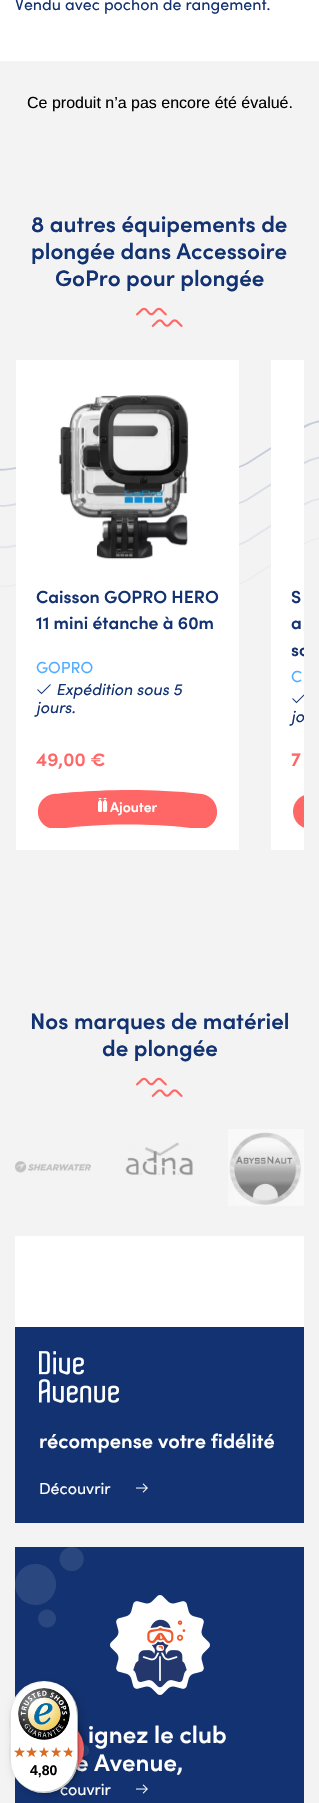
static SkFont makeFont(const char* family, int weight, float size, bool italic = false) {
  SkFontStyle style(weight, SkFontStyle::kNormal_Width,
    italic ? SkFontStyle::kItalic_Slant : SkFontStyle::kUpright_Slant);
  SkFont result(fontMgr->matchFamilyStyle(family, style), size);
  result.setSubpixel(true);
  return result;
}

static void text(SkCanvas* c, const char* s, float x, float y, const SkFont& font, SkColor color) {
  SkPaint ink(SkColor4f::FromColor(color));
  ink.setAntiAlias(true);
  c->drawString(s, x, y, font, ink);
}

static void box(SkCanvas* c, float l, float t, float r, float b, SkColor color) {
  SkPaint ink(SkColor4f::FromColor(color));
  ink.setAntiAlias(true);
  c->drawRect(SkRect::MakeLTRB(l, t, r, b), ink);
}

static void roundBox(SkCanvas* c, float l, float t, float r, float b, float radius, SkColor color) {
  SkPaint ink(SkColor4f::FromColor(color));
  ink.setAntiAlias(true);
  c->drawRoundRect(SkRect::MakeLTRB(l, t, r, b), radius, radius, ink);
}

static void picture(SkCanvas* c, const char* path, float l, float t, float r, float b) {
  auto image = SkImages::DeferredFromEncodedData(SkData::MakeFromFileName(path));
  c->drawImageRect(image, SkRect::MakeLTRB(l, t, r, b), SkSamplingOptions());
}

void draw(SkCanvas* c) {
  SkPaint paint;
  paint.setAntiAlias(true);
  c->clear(0xfff3f3f3);
  box(c, 0, 0, 319, 61, 0xffffffff);
  SkFont face1 = makeFont("Sofia", 400, 16);
  text(c, "Vendu avec pochon de rangement.", 15, 10, face1, 0xff133271);
  SkFont face2 = makeFont("Liberation Sans", 400, 16);
  text(c, "Ce produit n’a pas encore été évalué.", 27, 108, face2, 0xff000000);
  SkFont face3 = makeFont("Sofia", 600, 22.4f);
  text(c, "8 autres équipements de", 31, 232, face3, 0xff133271);
  text(c, "plongée dans Accessoire", 31, 259, face3, 0xff133271);
  text(c, "GoPro pour plongée", 55, 286, face3, 0xff133271);
  picture(c, "img_01.png", 136, 307, 183, 327);
  picture(c, "img_02.png", 0, 420, 319, 587);
  box(c, 16, 360, 239, 850, 0xffffffff);
  picture(c, "img_03.png", 58, 395, 189, 560);
  SkFont face4 = makeFont("Sofia", 600, 17.6f);
  text(c, "Caisson GOPRO HERO", 36, 603, face4, 0xff133271);
  text(c, "11 mini étanche à 60m", 36, 629, face4, 0xff133271);
  text(c, "GOPRO", 36, 673, face1, 0xff52acff);
  picture(c, "img_04.png", 37, 684, 51, 695);
  SkFont face5 = makeFont("Sofia", 400, 16, true);
  text(c, "Expédition sous 5", 56, 695, face5, 0xff133271);
  text(c, "jours.", 36, 713, face5, 0xff133271);
  SkFont face6 = makeFont("Sofia", 600, 19);
  text(c, "49,00 €", 36, 766, face6, 0xffff6767);
  c->save();
  c->clipRect(SkRect::MakeLTRB(38, 790, 217, 828));
  paint.setColor(0xffff6767);
  c->drawPath(SkPathBuilder().moveTo(55, 829).cubicTo(46, 829, 39, 822, 38, 814).cubicTo(37, 804, 43, 796, 53, 794).cubicTo(56, 794, 126, 785, 202, 794).cubicTo(212, 796, 218, 804, 217, 814).cubicTo(216, 823, 208, 830, 198, 829).cubicTo(126, 819, 58, 829, 57, 829).close().detach(), paint);
  c->restore();
  picture(c, "img_05.png", 98, 798, 108, 812);
  SkFont face7 = makeFont("Sofia", 600, 14);
  text(c, "Ajouter", 110, 812, face7, 0xffffffff);
  box(c, 271, 360, 304, 850, 0xffffffff);
  text(c, "S", 291, 603, face4, 0xff133271);
  text(c, "a", 291, 629, face4, 0xff133271);
  c->save();
  c->clipRect(SkRect::MakeLTRB(15, 359, 304, 851));
  text(c, "sc", 291, 656, face4, 0xff133271);
  c->restore();
  text(c, "C", 291, 682, face1, 0xff52acff);
  picture(c, "img_06.png", 292, 694, 304, 704);
  c->save();
  c->clipRect(SkRect::MakeLTRB(15, 359, 304, 851));
  text(c, "jo", 291, 722, face5, 0xff133271);
  c->restore();
  text(c, "7", 291, 766, face6, 0xffff6767);
  picture(c, "img_07.png", 293, 795, 304, 828);
  text(c, "Nos marques de matériel", 30, 1029, face3, 0xff133271);
  text(c, "de plongée", 102, 1056, face3, 0xff133271);
  picture(c, "img_01.png", 136, 1077, 183, 1097);
  picture(c, "img_08.png", 15, 1161, 91, 1173);
  picture(c, "img_09.png", 125, 1142, 193, 1176);
  picture(c, "img_10.png", 228, 1129, 304, 1206);
  box(c, 15, 1236, 304, 1327, 0xffffffff);
  box(c, 15, 1327, 304, 1523, 0xff133271);
  picture(c, "img_11.png", 39, 1351, 119, 1403);
  SkFont face8 = makeFont("Sofia", 600, 20);
  text(c, "récompense votre fidélité", 39, 1448, face8, 0xffffffff);
  text(c, "Découvrir", 39, 1494, face1, 0xffffffff);
  picture(c, "img_12.png", 136, 1483, 148, 1493);
  box(c, 15, 1547, 304, 1803, 0xff133271);
  picture(c, "img_13.png", 15, 1547, 89, 1757);
  picture(c, "img_14.png", 110, 1595, 210, 1695);
  SkFont face9 = makeFont("Sofia", 600, 24);
  text(c, "ignez le club", 88, 1743, face9, 0xffffffff);
  text(c, "e Avenue,", 75, 1771, face9, 0xffffffff);
  text(c, "couvrir", 60, 1795, face1, 0xffffffff);
  picture(c, "img_12.png", 136, 1784, 148, 1794);
  paint.setColor(0x33000000);
  paint.setMaskFilter(SkMaskFilter::MakeBlur(kNormal_SkBlurStyle, 2.5f));
  c->drawRoundRect(SkRect::MakeLTRB(21, 1716, 87, 1782), 33, 33, paint);
  paint.setMaskFilter(nullptr);
  paint.setColor(0xffff6767);
  c->drawCircle(54, 1749, 30, paint);
  paint.setColor(0x26000000);
  paint.setMaskFilter(SkMaskFilter::MakeBlur(kNormal_SkBlurStyle, 4));
  c->drawRoundRect(SkRect::MakeLTRB(13, 1684, 81, 1796), 34, 34, paint);
  paint.setMaskFilter(nullptr);
  paint.setMaskFilter(SkMaskFilter::MakeBlur(kNormal_SkBlurStyle, 1));
  c->drawRoundRect(SkRect::MakeLTRB(11, 1682, 79, 1794), 34, 34, paint);
  paint.setMaskFilter(nullptr);
  roundBox(c, 10, 1681, 78, 1793, 34, 0xffffffff);
  paint.setColor(0x1a000000);
  c->drawPath(SkPathBuilder().moveTo(45, 1682).cubicTo(53, 1682, 61, 1685, 67, 1690).cubicTo(50, 1675, 22, 1681, 13, 1702).cubicTo(8, 1712, 10, 1726, 10, 1737).cubicTo(10, 1752, 7, 1769, 19, 1782).cubicTo(14, 1776, 11, 1768, 11, 1760).lineTo(11, 1716).cubicTo(11, 1697, 26, 1682, 45, 1682).close().detach(), paint);
  paint.setColor(0x33000000);
  c->drawPath(SkPathBuilder().moveTo(21, 1784).cubicTo(38, 1799, 66, 1793, 75, 1772).cubicTo(80, 1762, 78, 1748, 78, 1737).cubicTo(78, 1722, 81, 1705, 69, 1692).cubicTo(79, 1705, 77, 1721, 77, 1736).cubicTo(77, 1747, 79, 1761, 74, 1771).cubicTo(66, 1792, 38, 1798, 21, 1784).close().detach(), paint);
  paint.setColor(0x33323232);
  c->drawPath(SkPathBuilder().moveTo(17, 1780).cubicTo(24, 1788, 33, 1793, 44, 1793).cubicTo(63, 1793, 78, 1778, 78, 1759).lineTo(78, 1715).cubicTo(78, 1704, 73, 1695, 65, 1688).cubicTo(72, 1695, 77, 1704, 77, 1714).lineTo(77, 1758).cubicTo(77, 1777, 62, 1792, 43, 1792).cubicTo(33, 1792, 24, 1787, 17, 1780).close().detach(), paint);
  paint.setColor(0x4dffffff);
  c->drawPath(SkPathBuilder().moveTo(10, 1758).cubicTo(10, 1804, 78, 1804, 78, 1758).cubicTo(78, 1777, 62, 1792, 44, 1792).cubicTo(25, 1792, 10, 1777, 10, 1758).close().detach(), paint);
  picture(c, "img_15.png", 18, 1688, 70, 1740);
  picture(c, "img_16.png", 14, 1747, 25, 1757);
  picture(c, "img_17.png", 27, 1747, 37, 1757);
  picture(c, "img_18.png", 39, 1747, 49, 1757);
  picture(c, "img_19.png", 51, 1747, 62, 1757);
  picture(c, "img_19.png", 63, 1747, 74, 1757);
  picture(c, "img_20.png", 14, 1747, 25, 1757);
  picture(c, "img_21.png", 26, 1747, 37, 1757);
  picture(c, "img_22.png", 39, 1747, 49, 1757);
  picture(c, "img_23.png", 51, 1747, 61, 1757);
  picture(c, "img_24.png", 63, 1747, 72, 1757);
  SkFont face10 = makeFont("Liberation Sans", 700, 14);
  text(c, "4,80", 30, 1775, face10, 0xff000000);
}
